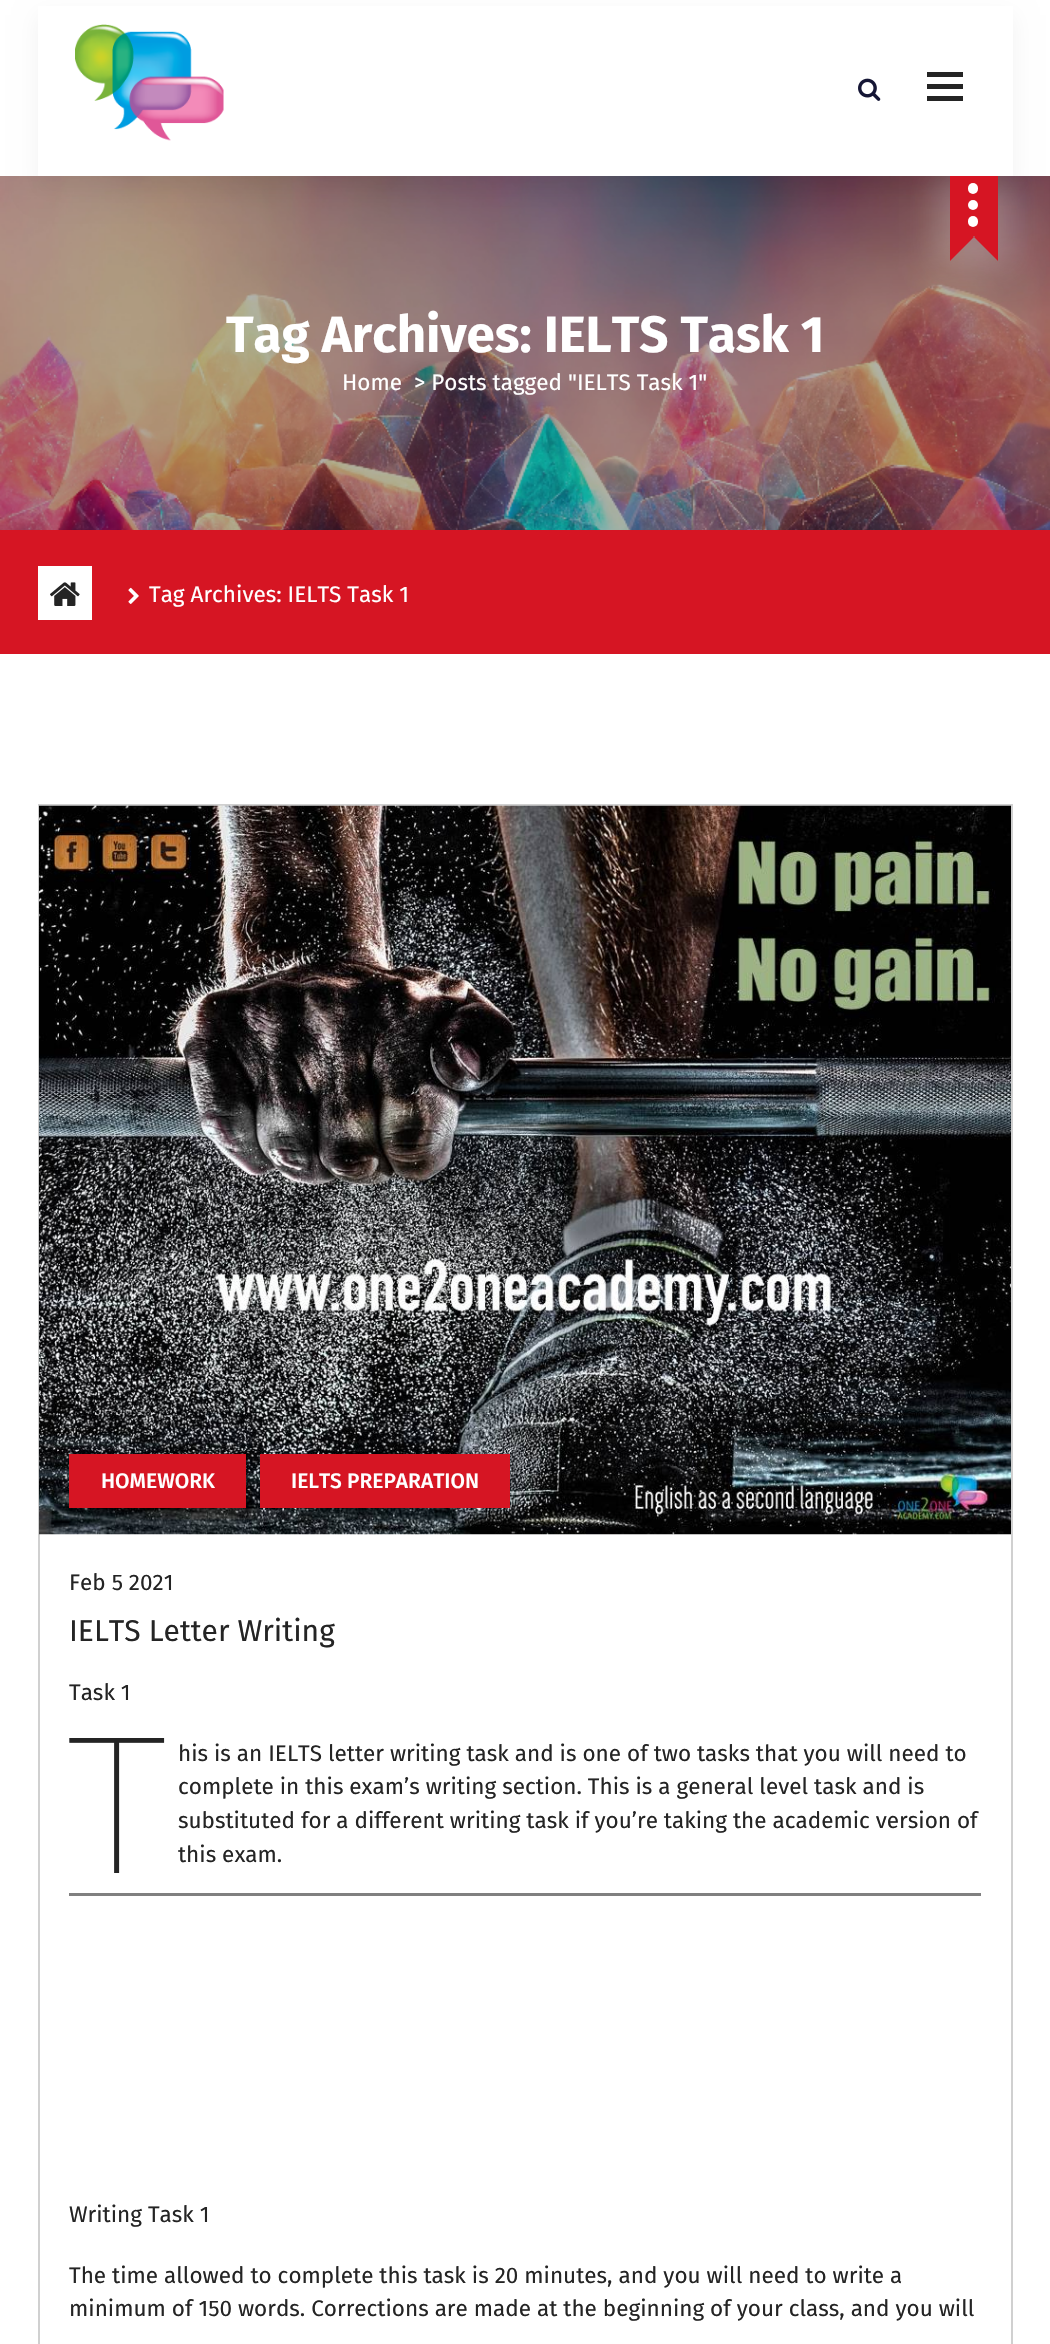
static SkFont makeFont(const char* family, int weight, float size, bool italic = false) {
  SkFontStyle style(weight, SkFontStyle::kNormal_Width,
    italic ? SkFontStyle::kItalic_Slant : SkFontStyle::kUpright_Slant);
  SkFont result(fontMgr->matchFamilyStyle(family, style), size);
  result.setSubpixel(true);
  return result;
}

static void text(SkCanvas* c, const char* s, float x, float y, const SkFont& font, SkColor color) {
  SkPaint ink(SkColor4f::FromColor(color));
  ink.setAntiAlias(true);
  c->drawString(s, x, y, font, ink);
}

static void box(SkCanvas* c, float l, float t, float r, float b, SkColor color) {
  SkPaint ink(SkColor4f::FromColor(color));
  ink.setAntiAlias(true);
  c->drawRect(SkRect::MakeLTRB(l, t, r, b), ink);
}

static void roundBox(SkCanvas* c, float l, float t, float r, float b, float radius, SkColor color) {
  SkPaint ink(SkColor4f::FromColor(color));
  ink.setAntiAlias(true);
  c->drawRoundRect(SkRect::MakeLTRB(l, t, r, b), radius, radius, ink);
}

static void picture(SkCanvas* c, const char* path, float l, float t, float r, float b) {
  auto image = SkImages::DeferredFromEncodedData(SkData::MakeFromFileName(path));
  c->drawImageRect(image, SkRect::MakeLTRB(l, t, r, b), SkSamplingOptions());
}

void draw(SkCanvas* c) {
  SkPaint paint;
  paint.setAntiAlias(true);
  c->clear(0xffffffff);
  picture(c, "img_03.png", 0, 176, 1050, 530);
  paint.setColor(0x0d000000);
  paint.setMaskFilter(SkMaskFilter::MakeBlur(kNormal_SkBlurStyle, 11));
  c->drawRect(SkRect::MakeLTRB(38, 15, 1013, 191), paint);
  paint.setMaskFilter(nullptr);
  box(c, 38, 6, 1013, 176, 0xffffffff);
  picture(c, "img_01.png", 75, 24, 224, 141);
  picture(c, "img_02.png", 858, 78, 881, 101);
  box(c, 927, 72, 963, 77, 0xff242424);
  box(c, 927, 84, 963, 89, 0xff242424);
  box(c, 927, 96, 963, 101, 0xff242424);
  paint.setColor(0x33ffffff);
  paint.setMaskFilter(SkMaskFilter::MakeBlur(kNormal_SkBlurStyle, 15));
  c->drawRect(SkRect::MakeLTRB(935, 176, 1013, 266), paint);
  paint.setMaskFilter(nullptr);
  box(c, 950, 176, 998, 236, 0xffd61523);
  paint.setColor(0xffffffff);
  c->drawCircle(973, 205, 5, paint);
  roundBox(c, 968, 183, 978, 194, 5, 0xffffffff);
  paint.setColor(0xffd61523);
  c->drawPath(SkPathBuilder().moveTo(998, 213).lineTo(998, 261).lineTo(974, 237).close().moveTo(950, 261).lineTo(950, 213).lineTo(974, 237).close().detach(), paint);
  roundBox(c, 968, 216, 978, 227, 5, 0xffffffff);
  SkFont face1 = makeFont("Fira Sans", 700, 51);
  text(c, "Tag Archives: IELTS Task 1", 226, 352, face1, 0xffffffff);
  SkFont face2 = makeFont("Fira Sans", 400, 22.5f);
  text(c, "Home", 342, 390, face2, 0xffffffff);
  text(c, "> Posts tagged \"IELTS Task 1\"", 414, 390, face2, 0xffffffff);
  box(c, 0, 530, 1050, 654, 0xffd61523);
  box(c, 38, 566, 92, 620, 0xffffffff);
  picture(c, "img_04.png", 50, 582, 80, 606);
  picture(c, "img_05.png", 128, 587, 139, 604);
  text(c, "Tag Archives: IELTS Task 1", 149, 602, face2, 0xffffffff);
  paint.setStyle(SkPaint::kStroke_Style);
  paint.setStrokeWidth(2);
  paint.setColor(0xffd0d0d0);
  c->drawRect(SkRect::MakeLTRB(39, 805, 1012, 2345), paint);
  picture(c, "img_06.png", 39, 805, 1011, 1535);
  box(c, 69, 1454, 246, 1508, 0xffd61523);
  SkFont face3 = makeFont("Fira Sans", 500, 21);
  text(c, "HOMEWORK", 101, 1488, face3, 0xffffffff);
  box(c, 260, 1454, 510, 1508, 0xffd61523);
  text(c, "IELTS PREPARATION", 291, 1488, face3, 0xffffffff);
  text(c, "Feb 5 2021", 69, 1590, face2, 0xff242424);
  SkFont face4 = makeFont("Fira Sans", 400, 30);
  text(c, "IELTS Letter Writing", 69, 1641, face4, 0xff242424);
  text(c, "Task 1", 69, 1700, face2, 0xff242424);
  SkFont face5 = makeFont("Noto Sans", 100, 189);
  text(c, "T", 69, 1873, face5, 0xff242424);
  text(c, "his is an IELTS letter writing task and is one of two tasks that you will need to", 178, 1761, face2, 0xff242424);
  text(c, "complete in this exam’s writing section. This is a general level task and is", 178, 1794, face2, 0xff242424);
  text(c, "substituted for a different writing task if you’re taking the academic version of", 178, 1828, face2, 0xff242424);
  text(c, "this exam.", 178, 1862, face2, 0xff242424);
  box(c, 69, 1893, 981, 1896, 0xff808080);
  text(c, "Writing Task 1", 69, 2222, face2, 0xff242424);
  text(c, "The time allowed to complete this task is 20 minutes, and you will need to write a", 69, 2283, face2, 0xff242424);
  text(c, "minimum of 150 words. Corrections are made at the beginning of your class, and you will", 69, 2316, face2, 0xff242424);
}
